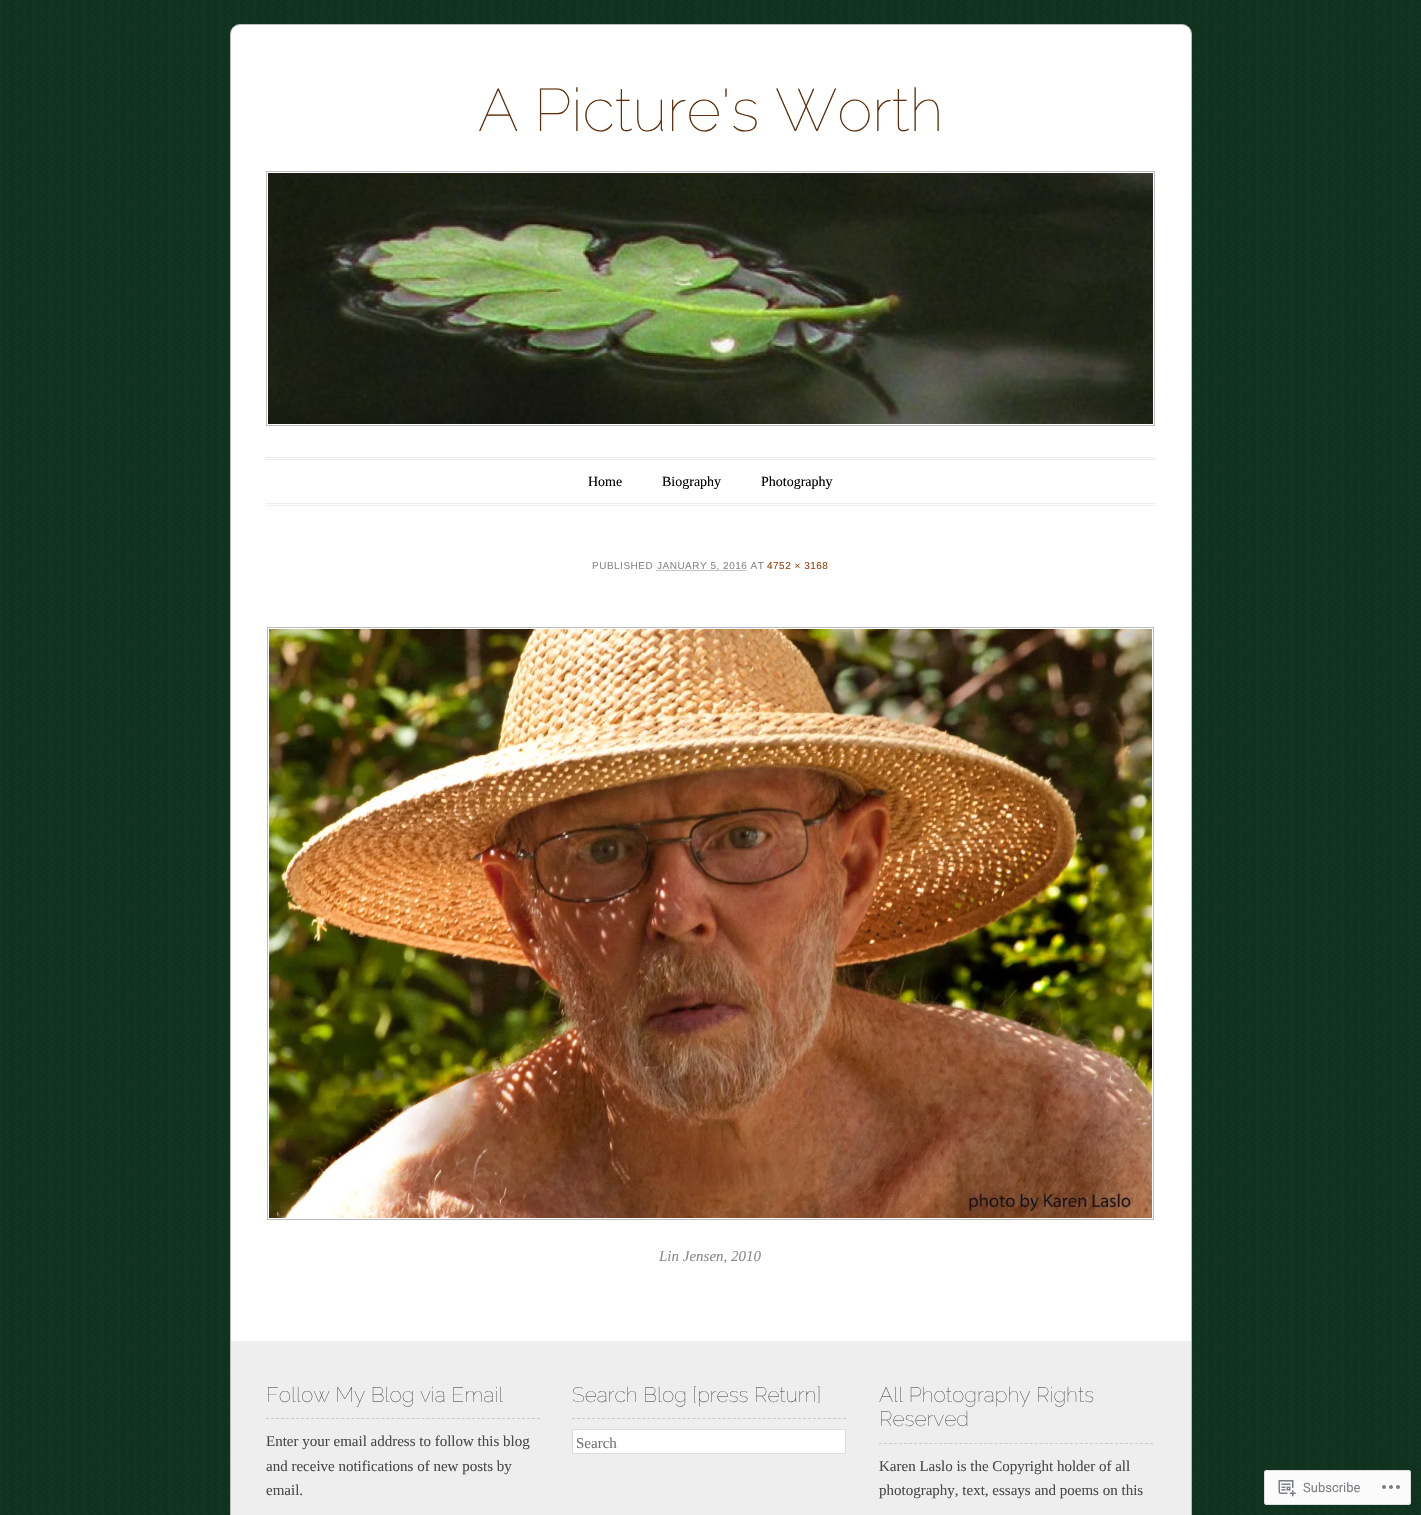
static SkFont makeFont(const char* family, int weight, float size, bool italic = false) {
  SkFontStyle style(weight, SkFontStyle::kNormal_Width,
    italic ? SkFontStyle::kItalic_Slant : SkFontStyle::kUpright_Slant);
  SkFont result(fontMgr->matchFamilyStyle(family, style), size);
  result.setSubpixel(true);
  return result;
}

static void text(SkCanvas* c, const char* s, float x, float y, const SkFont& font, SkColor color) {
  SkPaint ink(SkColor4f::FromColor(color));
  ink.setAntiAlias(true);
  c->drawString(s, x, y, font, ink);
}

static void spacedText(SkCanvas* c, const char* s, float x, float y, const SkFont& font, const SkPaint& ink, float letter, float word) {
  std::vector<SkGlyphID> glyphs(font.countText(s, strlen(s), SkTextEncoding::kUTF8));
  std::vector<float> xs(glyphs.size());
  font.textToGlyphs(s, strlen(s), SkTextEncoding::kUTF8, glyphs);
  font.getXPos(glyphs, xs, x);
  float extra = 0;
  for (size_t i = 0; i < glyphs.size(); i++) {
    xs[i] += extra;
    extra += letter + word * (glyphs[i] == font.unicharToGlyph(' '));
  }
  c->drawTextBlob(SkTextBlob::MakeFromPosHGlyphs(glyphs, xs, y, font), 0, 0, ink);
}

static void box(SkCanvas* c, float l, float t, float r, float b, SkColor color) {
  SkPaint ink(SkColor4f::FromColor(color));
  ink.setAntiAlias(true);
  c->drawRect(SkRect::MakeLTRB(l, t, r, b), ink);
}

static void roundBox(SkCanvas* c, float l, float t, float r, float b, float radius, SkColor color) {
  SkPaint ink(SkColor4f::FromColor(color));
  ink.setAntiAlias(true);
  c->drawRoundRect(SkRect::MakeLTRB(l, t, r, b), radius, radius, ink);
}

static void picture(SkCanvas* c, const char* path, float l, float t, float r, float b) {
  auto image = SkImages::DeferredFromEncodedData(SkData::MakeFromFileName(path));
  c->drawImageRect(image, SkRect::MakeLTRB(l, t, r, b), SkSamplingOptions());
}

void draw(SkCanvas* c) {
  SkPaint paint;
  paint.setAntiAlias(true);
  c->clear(0xff113621);
  picture(c, "img_01.png", 1, 0, 1421, 1515);
  paint.setColor(0xffffffff);
  c->drawRoundRect(SkRect::MakeLTRB(230.5f, 24.5f, 1191.5f, 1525.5f), 9.5f, 9.5f, paint);
  paint.setStyle(SkPaint::kStroke_Style);
  paint.setStrokeWidth(1);
  paint.setColor(0xffbbbbbb);
  c->drawRoundRect(SkRect::MakeLTRB(230.5f, 24.5f, 1191.5f, 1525.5f), 9.5f, 9.5f, paint);
  SkFont face1 = makeFont("Raleway", 100, 60);
  text(c, "A Picture's Worth", 478, 131, face1, 0xff602f0b);
  c->drawRect(SkRect::MakeLTRB(266.5f, 171.5f, 1154.5f, 425.5f), paint);
  picture(c, "img_02.png", 268, 173, 1153, 424);
  box(c, 266, 457, 1156, 458, 0xffeeeeee);
  box(c, 266, 459, 1156, 460, 0xffeeeeee);
  box(c, 266, 503, 1156, 504, 0xffeeeeee);
  box(c, 266, 505, 1156, 506, 0xffeeeeee);
  SkFont face2 = makeFont("Liberation Serif", 400, 14);
  text(c, "Home", 588, 486, face2, 0xff000000);
  text(c, "Biography", 662, 486, face2, 0xff000000);
  text(c, "Photography", 761, 486, face2, 0xff000000);
  box(c, 231, 1341, 1191, 1515, 0xffeeeeee);
  SkFont face3 = makeFont("Liberation Sans", 400, 10);
  paint.setStyle(SkPaint::kFill_Style);
  paint.setColor(0xff8a8a8a);
  spacedText(c, "PUBLISHED", 592, 569, face3, paint, 0.5f, 0);
  paint.setStyle(SkPaint::kStroke_Style);
  paint.setPathEffect(SkDashPathEffect::Make({{1, 1}}, 0));
  c->drawPath(SkPathBuilder().moveTo(656.5f, 570.5f).lineTo(747, 570.5f).detach(), paint);
  paint.setPathEffect(nullptr);
  paint.setStyle(SkPaint::kFill_Style);
  spacedText(c, "JANUARY 5, 2016 AT", 657, 569, face3, paint, 0.5f, 0);
  paint.setColor(0xff974512);
  spacedText(c, "4752 × 3168", 767, 569, face3, paint, 0.5f, 0);
  paint.setStyle(SkPaint::kStroke_Style);
  paint.setColor(0xffbbbbbb);
  c->drawRect(SkRect::MakeLTRB(267.5f, 627.5f, 1153.5f, 1219.5f), paint);
  picture(c, "img_03.png", 269, 629, 1152, 1218);
  SkFont face4 = makeFont("Liberation Serif", 400, 15, true);
  text(c, "Lin Jensen, 2010", 659, 1261, face4, 0xff8a8a8a);
  paint.setColor(0xffcccccc);
  paint.setPathEffect(SkDashPathEffect::Make({{3, 2.02f}}, 0));
  c->drawPath(SkPathBuilder().moveTo(266, 1418.5f).lineTo(540, 1418.5f).detach(), paint);
  paint.setPathEffect(nullptr);
  SkFont face5 = makeFont("Raleway", 100, 21);
  text(c, "Follow My Blog via Email", 266, 1402, face5, 0xff4a4a4a);
  SkFont face6 = makeFont("Liberation Serif", 400, 15);
  text(c, "Enter your email address to follow this blog", 266, 1446, face6, 0xff4a4a4a);
  text(c, "and receive notifications of new posts by", 266, 1471, face6, 0xff4a4a4a);
  text(c, "email.", 266, 1495, face6, 0xff4a4a4a);
  paint.setPathEffect(SkDashPathEffect::Make({{3, 2.02f}}, 0));
  c->drawPath(SkPathBuilder().moveTo(572, 1418.5f).lineTo(846, 1418.5f).detach(), paint);
  paint.setPathEffect(nullptr);
  text(c, "Search Blog [press Return]", 572, 1402, face5, 0xff4a4a4a);
  paint.setStyle(SkPaint::kFill_Style);
  paint.setColor(0xffffffff);
  c->drawRect(SkRect::MakeLTRB(572.5f, 1429.5f, 845.5f, 1453.5f), paint);
  paint.setStyle(SkPaint::kStroke_Style);
  paint.setColor(0xffdddddd);
  c->drawRect(SkRect::MakeLTRB(572.5f, 1429.5f, 845.5f, 1453.5f), paint);
  text(c, "Search", 576, 1448, face6, 0xff757575);
  paint.setColor(0xffcccccc);
  paint.setPathEffect(SkDashPathEffect::Make({{3, 2.02f}}, 0));
  c->drawPath(SkPathBuilder().moveTo(879, 1443.5f).lineTo(1153, 1443.5f).detach(), paint);
  paint.setPathEffect(nullptr);
  text(c, "All Photography Rights", 879, 1402, face5, 0xff4a4a4a);
  text(c, "Reserved", 879, 1426, face5, 0xff4a4a4a);
  text(c, "Karen Laslo is the Copyright holder of all", 879, 1471, face6, 0xff4a4a4a);
  text(c, "photography, text, essays and poems on this", 879, 1495, face6, 0xff4a4a4a);
  roundBox(c, 1264, 1470, 1411, 1505, 3, 0xfaffffff);
  paint.setColor(0xfadcdcde);
  c->drawRoundRect(SkRect::MakeLTRB(1264.5f, 1470.5f, 1410.5f, 1504.5f), 2.5f, 2.5f, paint);
  picture(c, "img_04.png", 1278, 1480, 1296, 1497);
  SkFont face7 = makeFont("Roboto", 400, 13);
  text(c, "Subscribe", 1303, 1492, face7, 0xff7b7f84);
  picture(c, "img_05.png", 1382, 1485, 1400, 1489);
}
